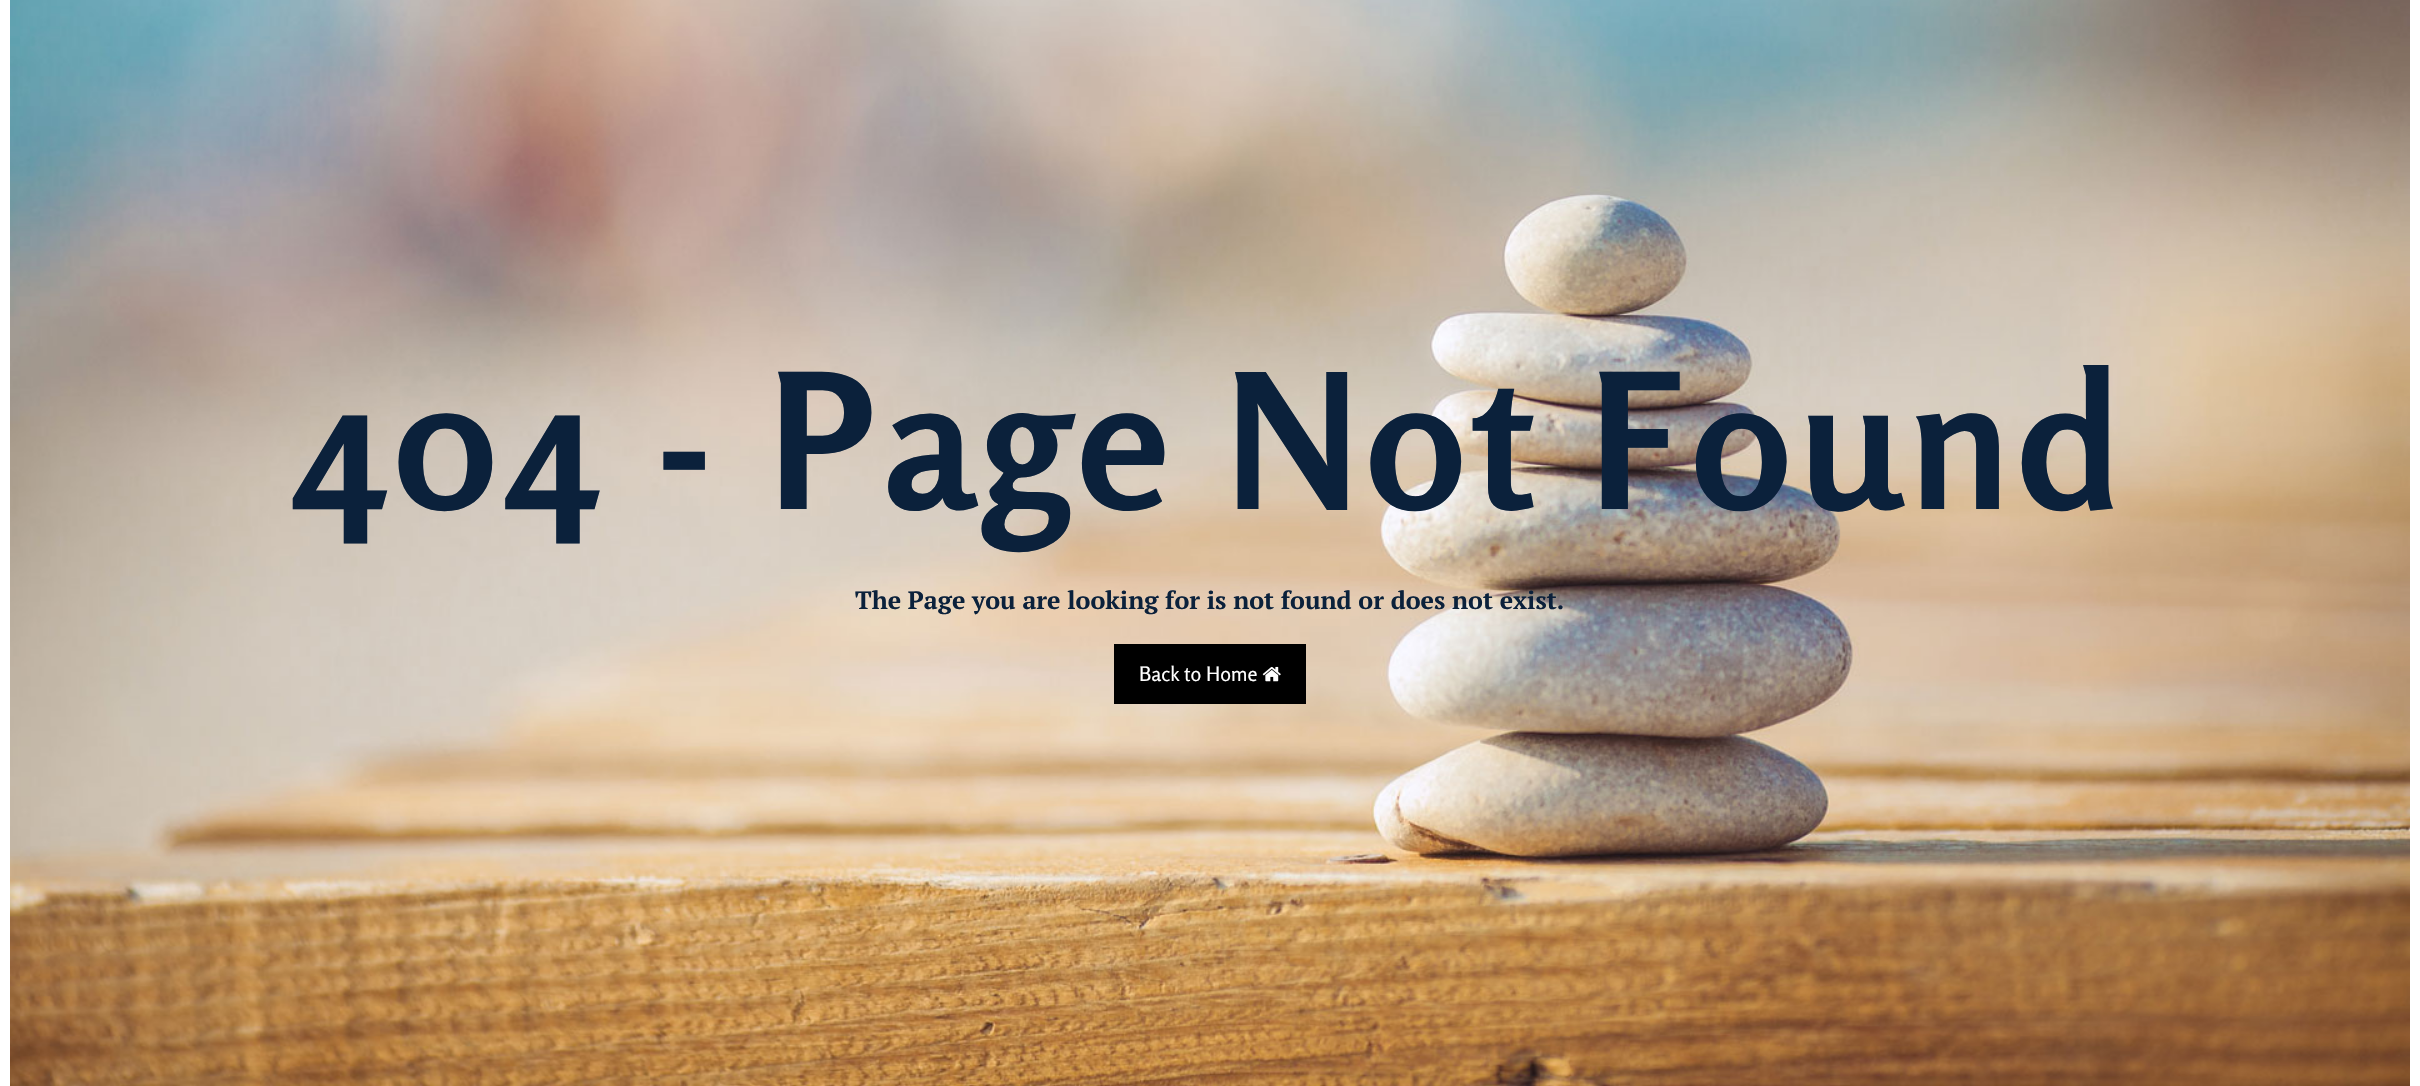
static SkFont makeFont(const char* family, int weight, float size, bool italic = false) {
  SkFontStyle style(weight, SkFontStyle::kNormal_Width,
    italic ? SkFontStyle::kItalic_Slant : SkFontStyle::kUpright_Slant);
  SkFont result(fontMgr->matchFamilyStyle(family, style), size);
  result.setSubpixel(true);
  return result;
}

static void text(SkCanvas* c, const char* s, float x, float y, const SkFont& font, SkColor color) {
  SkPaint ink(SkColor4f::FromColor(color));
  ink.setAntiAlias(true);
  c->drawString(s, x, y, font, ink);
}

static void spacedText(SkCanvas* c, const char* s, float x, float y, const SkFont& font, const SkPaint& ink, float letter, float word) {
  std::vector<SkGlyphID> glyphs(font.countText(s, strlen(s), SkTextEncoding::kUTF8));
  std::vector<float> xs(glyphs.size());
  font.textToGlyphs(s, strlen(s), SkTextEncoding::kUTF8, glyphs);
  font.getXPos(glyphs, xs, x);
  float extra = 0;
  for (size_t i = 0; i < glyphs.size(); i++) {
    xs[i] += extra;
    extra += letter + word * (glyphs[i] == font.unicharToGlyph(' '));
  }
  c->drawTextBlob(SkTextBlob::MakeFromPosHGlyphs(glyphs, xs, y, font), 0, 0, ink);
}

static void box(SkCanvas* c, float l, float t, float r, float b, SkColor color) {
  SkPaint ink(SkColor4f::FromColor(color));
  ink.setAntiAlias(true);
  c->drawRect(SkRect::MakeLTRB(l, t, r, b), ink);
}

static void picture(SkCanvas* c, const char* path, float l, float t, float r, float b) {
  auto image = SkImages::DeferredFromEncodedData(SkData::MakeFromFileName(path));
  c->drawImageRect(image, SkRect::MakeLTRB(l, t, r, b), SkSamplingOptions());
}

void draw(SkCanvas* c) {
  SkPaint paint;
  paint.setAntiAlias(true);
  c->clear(0xffffffff);
  picture(c, "img_01.png", 10, 0, 2410, 1086);
  SkFont face1 = makeFont("Rosario", 700, 187.5f);
  paint.setColor(0xff0b213b);
  spacedText(c, "404 - Page Not Found", 292, 509, face1, paint, 6.25f, 0);
  SkFont face2 = makeFont("PT Serif", 700, 25);
  text(c, "The Page you are looking for is not found or does not exist.", 855, 609, face2, 0xff0b213b);
  box(c, 1114, 644, 1306, 704, 0xff000000);
  SkFont face3 = makeFont("Rosario", 400, 20);
  text(c, "Back to Home", 1139, 681, face3, 0xffffffff);
  picture(c, "img_02.png", 1262, 666, 1281, 682);
}
